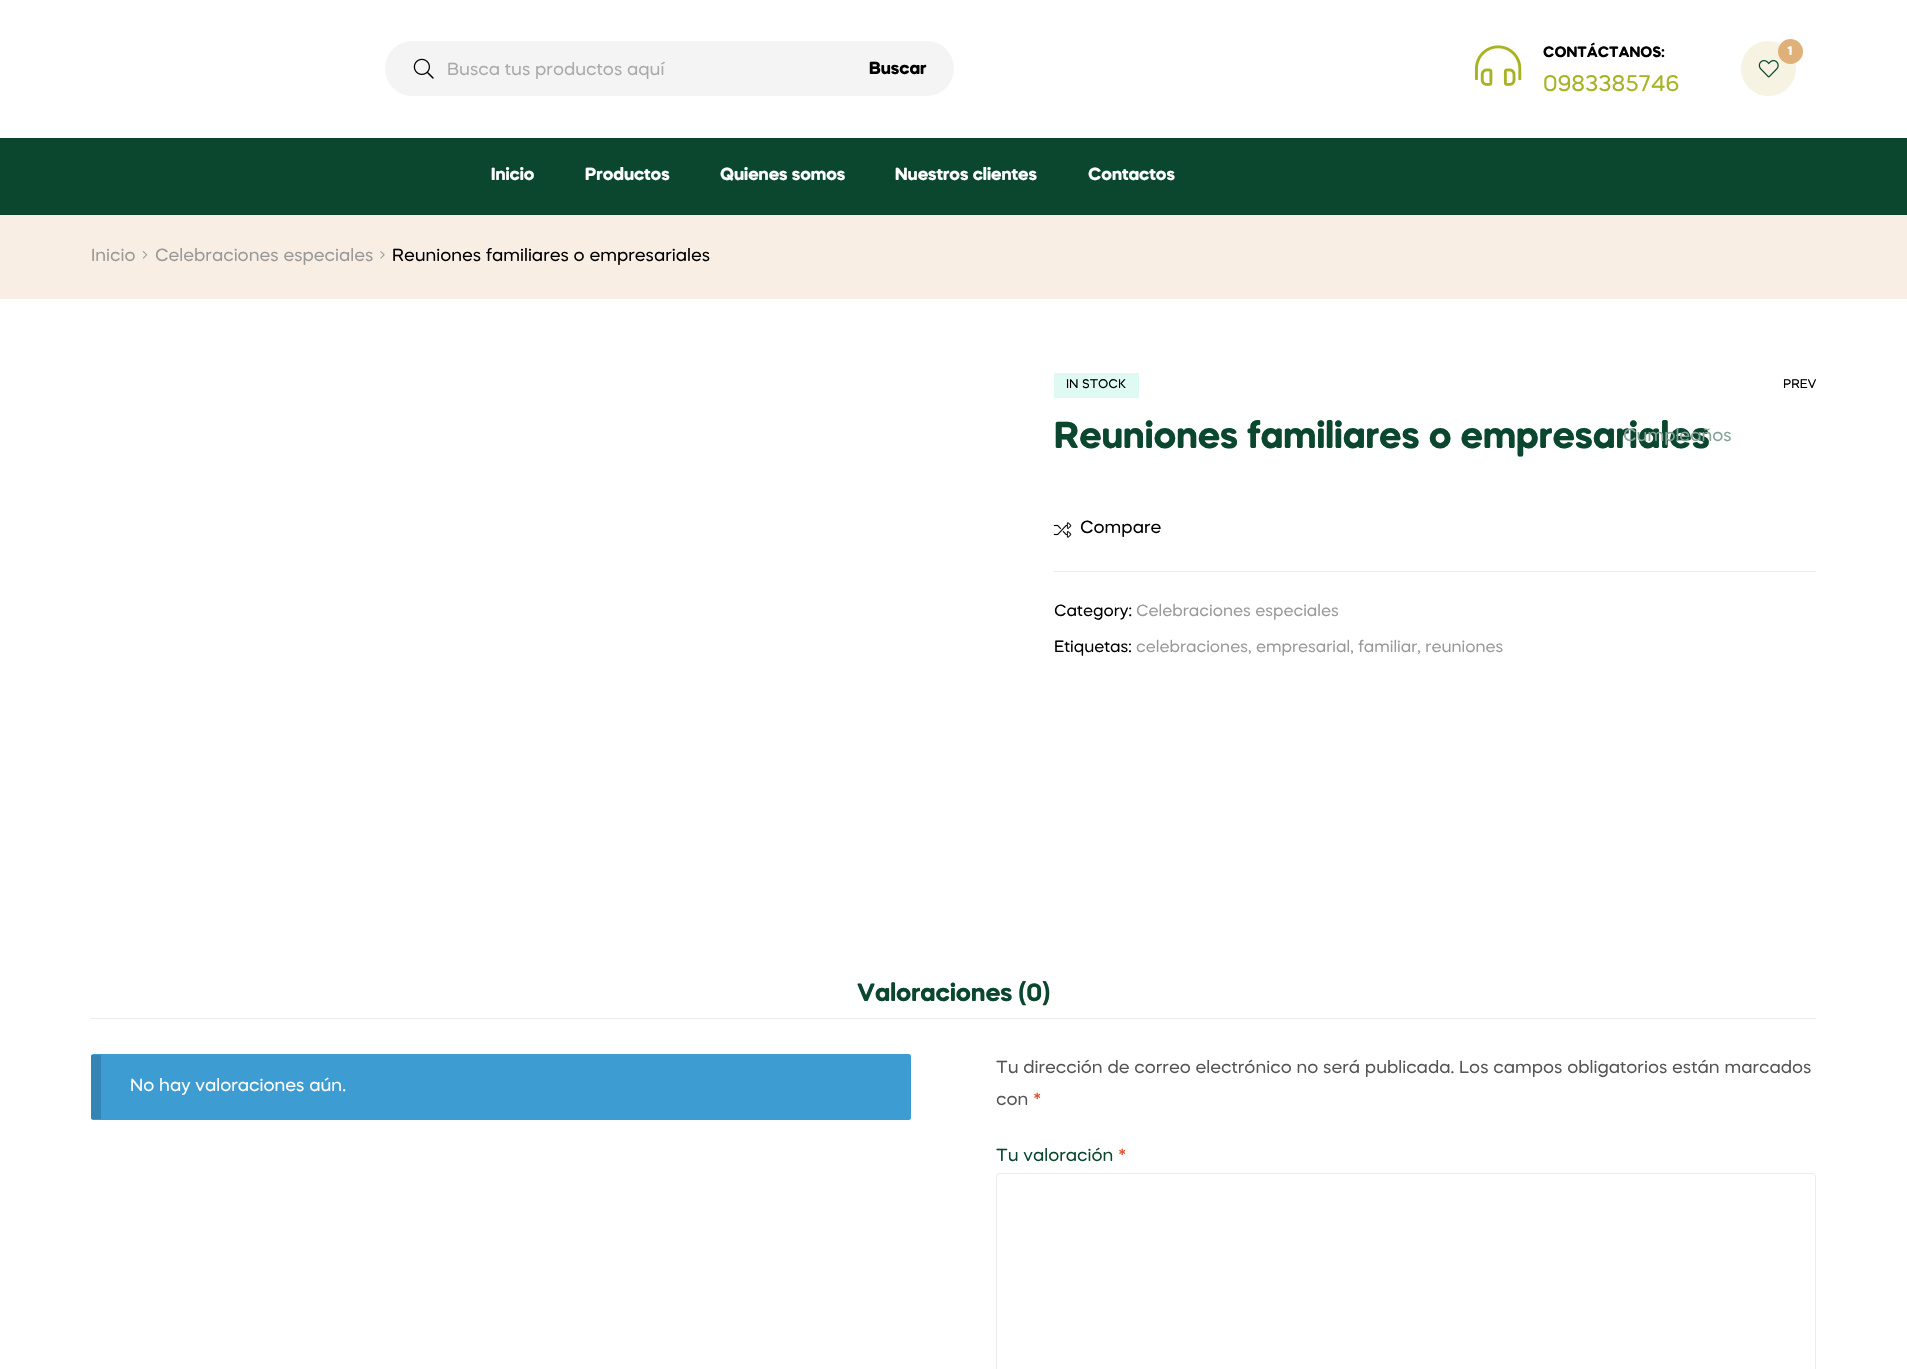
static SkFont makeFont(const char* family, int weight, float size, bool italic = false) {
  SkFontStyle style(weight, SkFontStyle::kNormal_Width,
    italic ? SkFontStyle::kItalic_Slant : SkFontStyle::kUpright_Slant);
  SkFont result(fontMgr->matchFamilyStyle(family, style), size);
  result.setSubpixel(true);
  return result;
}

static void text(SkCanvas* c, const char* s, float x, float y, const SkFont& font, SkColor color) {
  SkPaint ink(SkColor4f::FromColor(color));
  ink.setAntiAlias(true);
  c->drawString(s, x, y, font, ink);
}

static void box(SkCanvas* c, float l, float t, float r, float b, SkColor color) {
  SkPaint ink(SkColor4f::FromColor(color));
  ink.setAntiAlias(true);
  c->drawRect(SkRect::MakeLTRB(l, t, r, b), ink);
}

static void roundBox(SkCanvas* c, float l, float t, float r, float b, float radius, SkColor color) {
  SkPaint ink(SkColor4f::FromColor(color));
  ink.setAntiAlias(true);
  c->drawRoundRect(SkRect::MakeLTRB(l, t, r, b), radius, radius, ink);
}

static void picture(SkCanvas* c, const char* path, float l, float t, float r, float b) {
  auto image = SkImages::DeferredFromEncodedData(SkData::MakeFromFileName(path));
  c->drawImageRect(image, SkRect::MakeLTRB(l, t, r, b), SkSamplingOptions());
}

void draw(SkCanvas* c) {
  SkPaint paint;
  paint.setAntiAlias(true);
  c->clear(0xffffffff);
  roundBox(c, 385, 41, 954, 96, 27.5f, 0xfff4f4f4);
  picture(c, "img_01.png", 413, 58, 434, 79);
  SkFont face1 = makeFont("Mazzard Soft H", 400, 17.5f);
  text(c, "Busca tus productos aquí", 447, 75, face1, 0xffaaaaaa);
  SkFont face2 = makeFont("Mazzard Soft H", 700, 17.5f);
  text(c, "Buscar", 869, 74, face2, 0xff000000);
  picture(c, "img_02.png", 1475, 45, 1522, 86);
  SkFont face3 = makeFont("Mazzard Soft H", 700, 15);
  text(c, "CONTÁCTANOS:", 1543, 57, face3, 0xff000000);
  SkFont face4 = makeFont("Mazzard Soft H", 400, 22.5f);
  text(c, "0983385746", 1543, 91, face4, 0xffa8b324);
  paint.setColor(0xfff6f3e3);
  c->drawCircle(1768.5f, 68.5f, 27.5f, paint);
  picture(c, "img_03.png", 1758, 60, 1779, 78);
  paint.setColor(0xffdfb178);
  c->drawCircle(1790.5f, 51.5f, 12.5f, paint);
  SkFont face5 = makeFont("Mazzard Soft H", 700, 12.5f);
  text(c, "1", 1787, 55, face5, 0xffffffff);
  box(c, 0, 138, 1907, 215, 0xff0a472e);
  text(c, "Inicio", 491, 180, face2, 0xffffffff);
  text(c, "Productos", 585, 180, face2, 0xffffffff);
  text(c, "Quienes somos", 720, 180, face2, 0xffffffff);
  text(c, "Nuestros clientes", 895, 180, face2, 0xffffffff);
  text(c, "Contactos", 1088, 180, face2, 0xffffffff);
  box(c, 0, 215, 1907, 299, 0xfff8eee3);
  text(c, "Inicio", 91, 261, face1, 0xff999999);
  picture(c, "img_04.png", 142, 251, 148, 259);
  text(c, "Celebraciones especiales", 155, 261, face1, 0xff999999);
  picture(c, "img_05.png", 380, 251, 385, 259);
  text(c, "Reuniones familiares o empresariales", 392, 261, face1, 0xff000000);
  box(c, 1054, 373, 1139, 398, 0xffdefaf2);
  SkFont face6 = makeFont("Mazzard Soft H", 400, 12.5f);
  text(c, "IN STOCK", 1066, 388, face6, 0xff000000);
  text(c, "PREV", 1783, 388, face6, 0xff000000);
  SkFont face7 = makeFont("Mazzard Soft H", 700, 37.5f);
  text(c, "Reuniones familiares o empresariales", 1054, 448, face7, 0xff0a472e);
  text(c, "Cumpleaños", 1623, 441, face1, 0xff85a397);
  picture(c, "img_06.png", 1053, 522, 1072, 538);
  text(c, "Compare", 1080, 533, face1, 0xff000000);
  box(c, 1054, 571, 1816, 572, 0xffebebeb);
  SkFont face8 = makeFont("Mazzard Soft H", 400, 16.25f);
  text(c, "Category:", 1054, 616, face8, 0xff000000);
  text(c, "Celebraciones especiales", 1136, 616, face8, 0xff999999);
  text(c, "Etiquetas:", 1054, 652, face8, 0xff000000);
  text(c, "celebraciones, empresarial, familiar, reuniones", 1136, 652, face8, 0xff999999);
  box(c, 91, 1018, 1816, 1019, 0xffebebeb);
  SkFont face9 = makeFont("Mazzard Soft H", 700, 25);
  text(c, "Valoraciones (0)", 857, 1001, face9, 0xff0a472e);
  roundBox(c, 91, 1054, 911, 1120, 2.5f, 0xff3d9cd2);
  box(c, 91, 1055, 101, 1119, 0x26000000);
  text(c, "No hay valoraciones aún.", 130, 1091, face1, 0xffffffff);
  text(c, "Tu dirección de correo electrónico no será publicada. Los campos obligatorios están marcados", 996, 1073, face1, 0xff555555);
  text(c, "con", 996, 1105, face1, 0xff555555);
  text(c, "*", 1033, 1105, face1, 0xffe2401c);
  text(c, "Tu valoración", 996, 1161, face1, 0xff0a472e);
  text(c, "*", 1118, 1161, face1, 0xffe2401c);
  paint.setStyle(SkPaint::kStroke_Style);
  paint.setStrokeWidth(1);
  paint.setColor(0xffebebeb);
  c->drawRoundRect(SkRect::MakeLTRB(996.5f, 1173.5f, 1815.5f, 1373.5f), 3.5f, 3.5f, paint);
}
